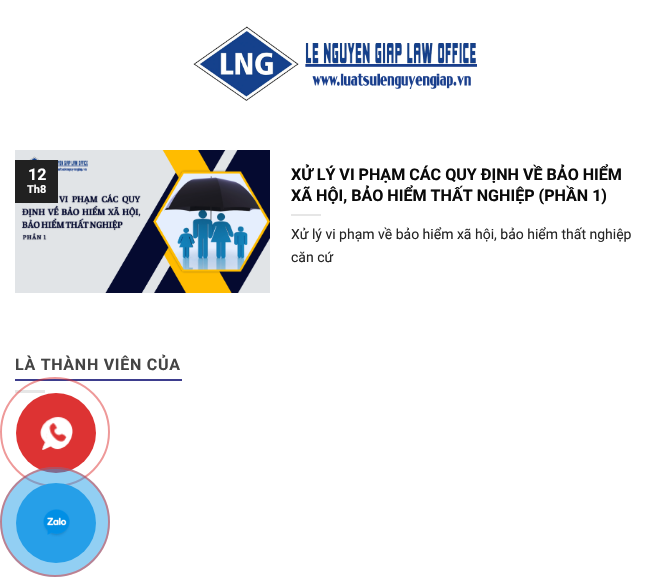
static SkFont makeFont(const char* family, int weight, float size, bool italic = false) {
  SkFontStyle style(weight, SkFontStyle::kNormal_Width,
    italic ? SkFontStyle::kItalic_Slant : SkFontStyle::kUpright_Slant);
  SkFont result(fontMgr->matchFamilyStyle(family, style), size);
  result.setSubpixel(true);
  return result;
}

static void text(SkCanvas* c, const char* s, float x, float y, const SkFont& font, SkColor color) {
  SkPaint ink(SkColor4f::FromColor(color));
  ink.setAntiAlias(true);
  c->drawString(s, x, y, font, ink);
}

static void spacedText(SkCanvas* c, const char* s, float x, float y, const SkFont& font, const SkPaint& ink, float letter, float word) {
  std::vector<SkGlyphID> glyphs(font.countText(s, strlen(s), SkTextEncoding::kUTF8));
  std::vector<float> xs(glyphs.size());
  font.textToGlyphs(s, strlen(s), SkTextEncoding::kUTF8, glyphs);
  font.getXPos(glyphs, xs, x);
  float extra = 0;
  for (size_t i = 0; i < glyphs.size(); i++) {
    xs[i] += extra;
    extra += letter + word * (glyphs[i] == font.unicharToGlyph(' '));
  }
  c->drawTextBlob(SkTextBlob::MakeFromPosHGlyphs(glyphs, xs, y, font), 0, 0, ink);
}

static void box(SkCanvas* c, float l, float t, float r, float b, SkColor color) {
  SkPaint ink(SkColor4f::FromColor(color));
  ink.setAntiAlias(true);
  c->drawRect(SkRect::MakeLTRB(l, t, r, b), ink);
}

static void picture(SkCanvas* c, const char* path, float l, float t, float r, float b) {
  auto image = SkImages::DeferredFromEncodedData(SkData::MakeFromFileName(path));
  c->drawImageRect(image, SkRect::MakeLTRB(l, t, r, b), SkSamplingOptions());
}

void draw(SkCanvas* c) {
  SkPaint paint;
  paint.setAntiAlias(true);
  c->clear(0xffffffff);
  picture(c, "img_01.png", 193, 26, 477, 101);
  picture(c, "img_02.png", 15, 150, 270, 293);
  SkFont face1 = makeFont("Roboto", 700, 16.1f);
  text(c, "XỬ LÝ VI PHẠM CÁC QUY ĐỊNH VỀ BẢO HIỂM", 291, 180, face1, 0xff0a0a0a);
  text(c, "XÃ HỘI, BẢO HIỂM THẤT NGHIỆP (PHẦN 1)", 291, 201, face1, 0xff0a0a0a);
  box(c, 291, 214, 321, 216, 0xffe6e6e6);
  SkFont face2 = makeFont("Roboto", 400, 14);
  text(c, "Xử lý vi phạm về bảo hiểm xã hội, bảo hiểm thất nghiệp", 291, 239, face2, 0xff262626);
  text(c, "căn cứ", 291, 262, face2, 0xff262626);
  box(c, 15, 160, 58, 203, 0xff212121);
  SkFont face3 = makeFont("Roboto", 700, 16);
  text(c, "12", 28, 180, face3, 0xffffffff);
  SkFont face4 = makeFont("Roboto", 700, 11);
  text(c, "Th8", 27, 193, face4, 0xffffffff);
  box(c, 15, 379, 182, 381, 0xff3d3d8d);
  paint.setColor(0xff444444);
  spacedText(c, "LÀ THÀNH VIÊN CỦA", 15, 370, face3, paint, 0.75f, 0);
  box(c, 15, 390, 45, 393, 0xffe6e6e6);
  paint.setStyle(SkPaint::kStroke_Style);
  paint.setStrokeWidth(2);
  paint.setColor(0x80dd3333);
  c->drawCircle(55, 432, 54, paint);
  paint.setStyle(SkPaint::kFill_Style);
  paint.setColor(0xffdd3333);
  c->drawCircle(56, 433, 40, paint);
  picture(c, "img_03.png", 40, 416, 73, 450);
  paint.setColor(0x80269fe8);
  c->drawCircle(55, 522, 55, paint);
  paint.setStyle(SkPaint::kStroke_Style);
  paint.setColor(0x80dd3333);
  c->drawCircle(55, 522, 54, paint);
  paint.setStyle(SkPaint::kFill_Style);
  paint.setColor(0xff269fe8);
  c->drawCircle(56, 523, 40, paint);
  picture(c, "img_04.png", 43, 509, 70, 537);
}
